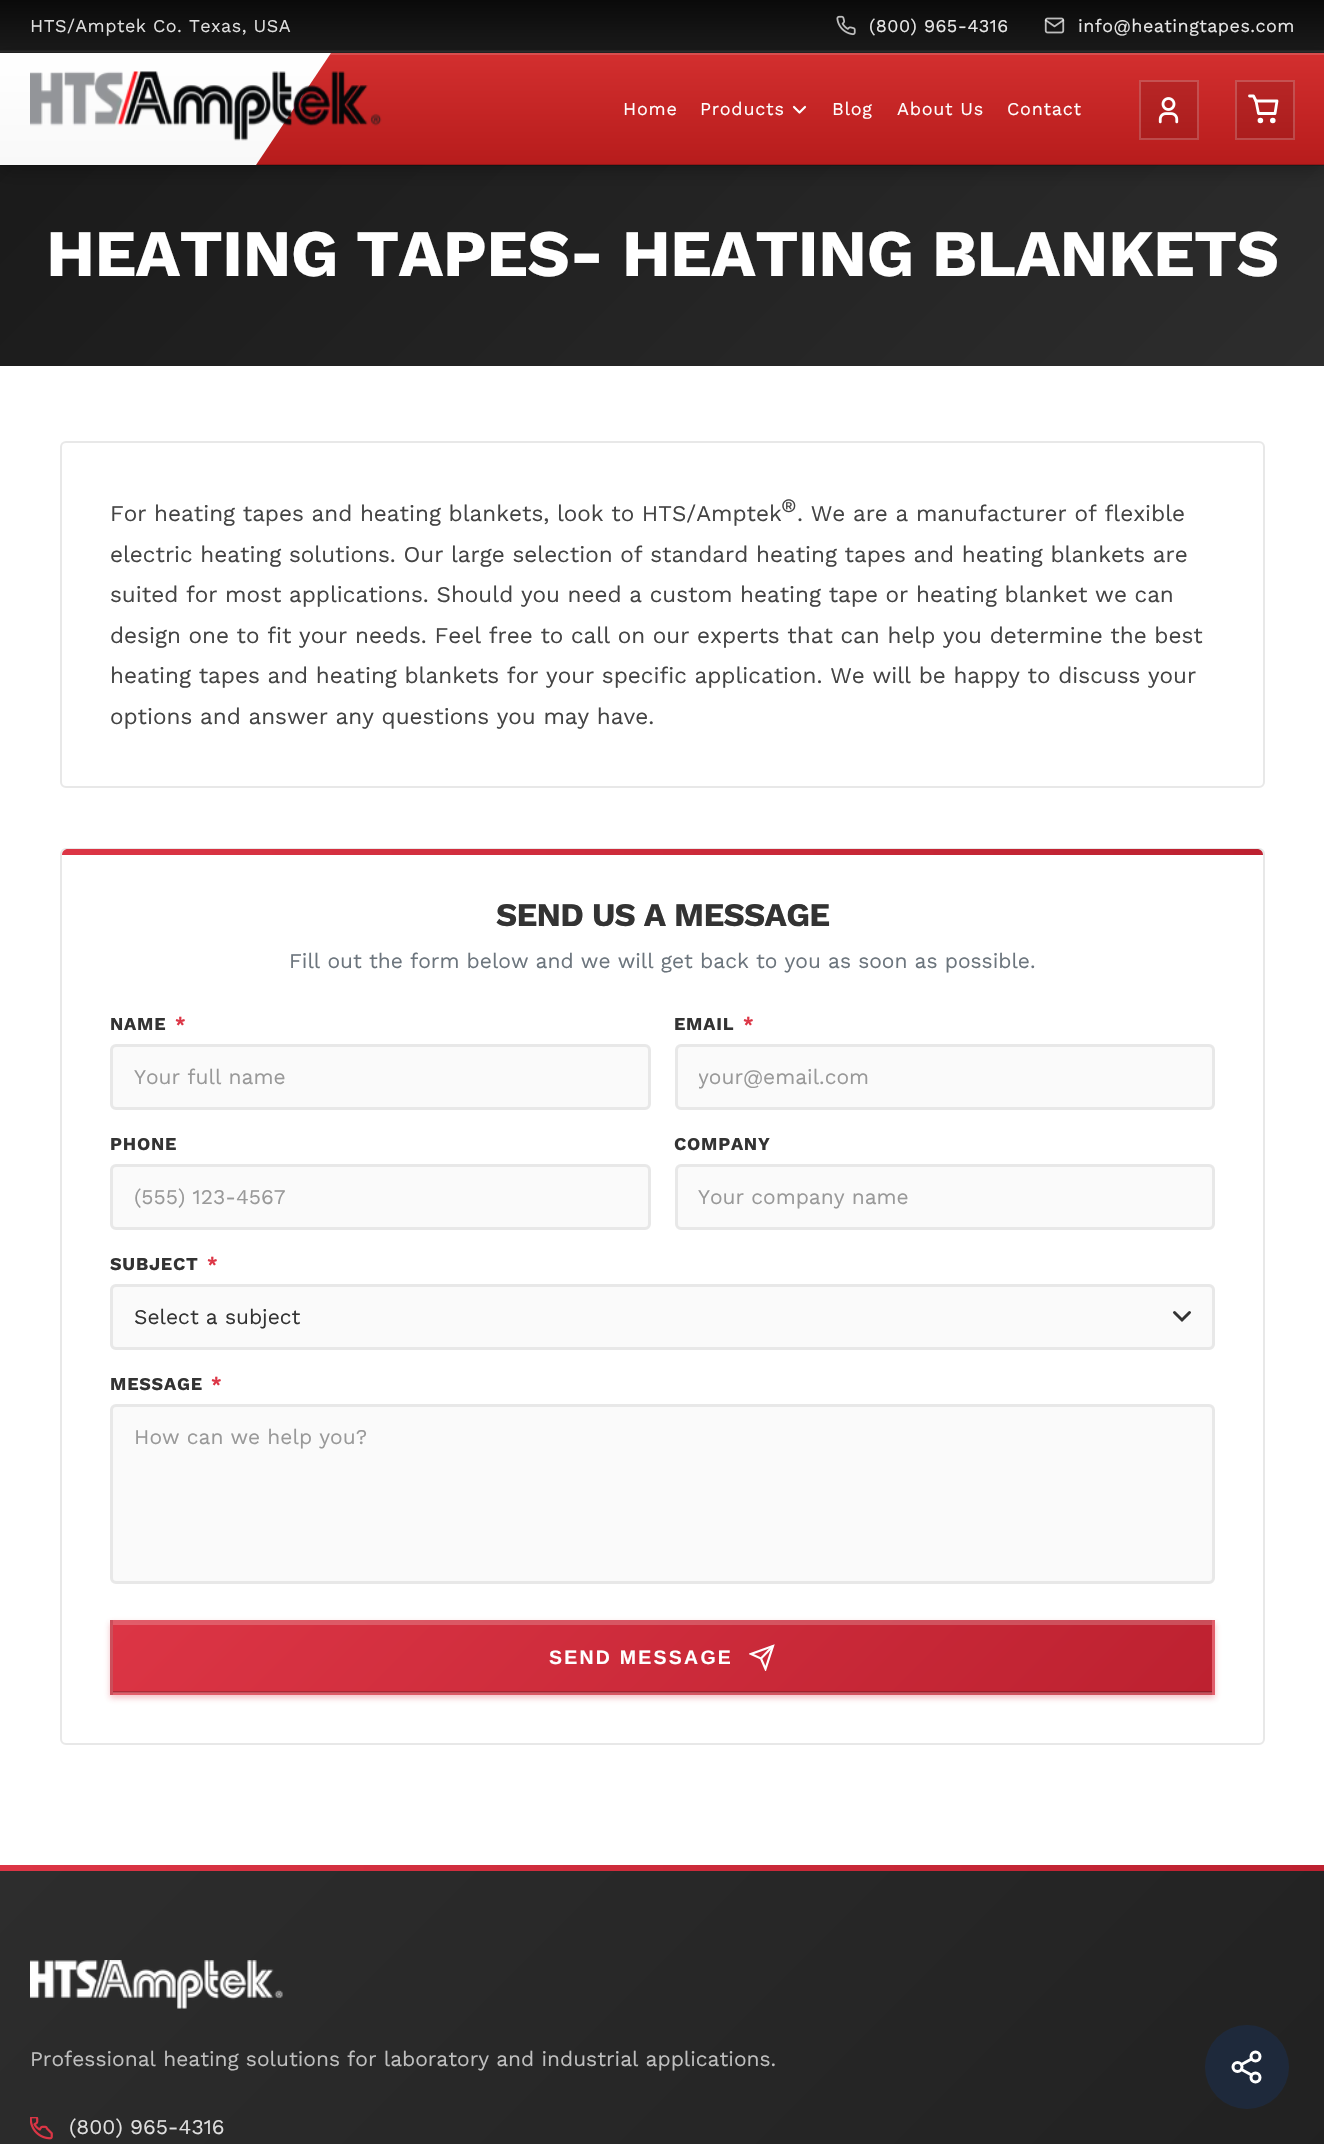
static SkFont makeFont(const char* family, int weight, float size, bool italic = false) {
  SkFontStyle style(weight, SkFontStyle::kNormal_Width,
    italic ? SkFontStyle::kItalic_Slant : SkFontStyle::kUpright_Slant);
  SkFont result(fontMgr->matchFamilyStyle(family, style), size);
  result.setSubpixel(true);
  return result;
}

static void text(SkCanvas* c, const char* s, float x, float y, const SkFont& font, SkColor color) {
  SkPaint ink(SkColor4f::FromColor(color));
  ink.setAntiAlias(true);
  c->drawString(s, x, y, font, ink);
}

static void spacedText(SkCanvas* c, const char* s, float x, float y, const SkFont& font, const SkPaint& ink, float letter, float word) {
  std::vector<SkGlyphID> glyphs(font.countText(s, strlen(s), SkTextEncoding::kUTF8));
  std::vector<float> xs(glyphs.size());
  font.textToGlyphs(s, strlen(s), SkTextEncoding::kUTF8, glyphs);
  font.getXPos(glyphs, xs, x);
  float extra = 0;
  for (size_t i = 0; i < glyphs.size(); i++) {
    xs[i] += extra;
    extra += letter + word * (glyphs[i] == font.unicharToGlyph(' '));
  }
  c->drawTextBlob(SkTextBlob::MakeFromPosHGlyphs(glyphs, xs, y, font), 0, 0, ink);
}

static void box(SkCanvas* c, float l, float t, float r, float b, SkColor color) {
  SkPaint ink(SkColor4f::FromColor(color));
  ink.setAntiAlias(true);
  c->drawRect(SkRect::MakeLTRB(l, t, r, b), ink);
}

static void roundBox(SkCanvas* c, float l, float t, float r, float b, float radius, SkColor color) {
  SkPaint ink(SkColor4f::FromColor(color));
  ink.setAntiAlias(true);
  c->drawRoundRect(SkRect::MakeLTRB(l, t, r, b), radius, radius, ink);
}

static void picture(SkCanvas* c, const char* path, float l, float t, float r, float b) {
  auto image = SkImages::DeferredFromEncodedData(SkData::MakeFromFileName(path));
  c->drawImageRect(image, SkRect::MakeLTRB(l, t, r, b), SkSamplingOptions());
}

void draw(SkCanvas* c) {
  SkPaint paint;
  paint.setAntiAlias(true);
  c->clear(0xffffffff);
  {
    const SkColor colors[] = {0xff0a0a0a, 0xff1a1a1a};
    const float stops[] = {0, 1};
    const SkPoint ends[] = {{662, 0}, {662, 51}};
    paint.setShader(SkGradientShader::MakeLinear(ends, colors, stops, 2, SkTileMode::kClamp));
    paint.setAlpha(255);
  }
  c->drawRect(SkRect::MakeLTRB(0, 0, 1324, 50), paint);
  {
    const SkColor colors[] = {0xff161616, 0xff252525};
    const float stops[] = {0, 1};
    const SkPoint ends[] = {{662, 0}, {662, 51}};
    paint.setShader(SkGradientShader::MakeLinear(ends, colors, stops, 2, SkTileMode::kClamp));
    paint.setAlpha(255);
  }
  c->drawRect(SkRect::MakeLTRB(0, 50, 1324, 51), paint);
  {
    const SkColor colors[] = {0xff232323, 0xff313131};
    const float stops[] = {0, 1};
    const SkPoint ends[] = {{662, 51}, {662, 102}};
    paint.setShader(SkGradientShader::MakeLinear(ends, colors, stops, 2, SkTileMode::kClamp));
    paint.setAlpha(255);
  }
  c->drawRect(SkRect::MakeLTRB(0, 52, 1324, 53), paint);
  {
    const SkColor colors[] = {0xff2d2d2d, 0xff3b3b3b};
    const float stops[] = {0, 1};
    const SkPoint ends[] = {{662, 51}, {662, 102}};
    paint.setShader(SkGradientShader::MakeLinear(ends, colors, stops, 2, SkTileMode::kClamp));
    paint.setAlpha(255);
  }
  c->drawRect(SkRect::MakeLTRB(0, 51, 1324, 52), paint);
  SkFont face1 = makeFont("Work Sans", 400, 18);
  paint.setShader(nullptr);
  paint.setColor(0xffdfdfdf);
  spacedText(c, "HTS/Amptek Co. Texas, USA", 30, 32, face1, paint, 0.45f, 0);
  picture(c, "img_01.png", 836, 15, 856, 36);
  paint.setColor(0xffe7e7e7);
  spacedText(c, "(800) 965-4316", 869, 32, face1, paint, 0.45f, 0);
  picture(c, "img_02.png", 1044, 17, 1065, 34);
  spacedText(c, "info@heatingtapes.com", 1078, 32, face1, paint, 0.45f, 0);
  {
    const SkColor colors[] = {0xff1a1a1a, 0xff2d2d2d};
    const float stops[] = {0, 1};
    const SkPoint ends[] = {{275, -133}, {1049, 641}};
    paint.setShader(SkGradientShader::MakeLinear(ends, colors, stops, 2, SkTileMode::kClamp));
    paint.setAlpha(255);
  }
  c->drawRect(SkRect::MakeLTRB(0, 165, 1324, 366), paint);
  paint.setShader(nullptr);
  paint.setColor(0x40000000);
  paint.setMaskFilter(SkMaskFilter::MakeBlur(kNormal_SkBlurStyle, 9));
  c->drawRect(SkRect::MakeLTRB(0, 59, 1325, 171), paint);
  paint.setMaskFilter(nullptr);
  {
    const SkColor colors[] = {0xffd32f2f, 0xffb71c1c};
    const float stops[] = {0, 1};
    const SkPoint ends[] = {{662, 52}, {662, 165}};
    paint.setShader(SkGradientShader::MakeLinear(ends, colors, stops, 2, SkTileMode::kClamp));
    paint.setAlpha(255);
  }
  c->drawRect(SkRect::MakeLTRB(256, 55, 1324, 165), paint);
  {
    const SkColor colors[] = {0xffbe2a2a, 0xffa51919};
    const float stops[] = {0, 1};
    const SkPoint ends[] = {{662, 52}, {662, 165}};
    paint.setShader(SkGradientShader::MakeLinear(ends, colors, stops, 2, SkTileMode::kClamp));
    paint.setAlpha(255);
  }
  c->drawRect(SkRect::MakeLTRB(1235, 80, 1295, 140), paint);
  c->drawRect(SkRect::MakeLTRB(1139, 80, 1199, 140), paint);
  box(c, 0, 164, 1324, 166, 0x33000000);
  box(c, 329, 53, 1324, 55, 0xffd94e4e);
  {
    const SkColor colors[] = {0xffffffff, 0xfff8f8f8};
    const float stops[] = {0, 1};
    const SkPoint ends[] = {{166, 52}, {166, 165}};
    paint.setShader(SkGradientShader::MakeLinear(ends, colors, stops, 2, SkTileMode::kClamp));
    paint.setAlpha(255);
  }
  c->drawPath(SkPathBuilder().moveTo(0, 53).lineTo(0, 165).lineTo(256, 165).lineTo(331, 53).close().detach(), paint);
  paint.setShader(nullptr);
  paint.setColor(0xffe6baba);
  c->drawPath(SkPathBuilder().moveTo(330, 53).lineTo(331, 53).lineTo(330, 54).close().detach(), paint);
  picture(c, "img_03.png", 30, 71, 382, 141);
  paint.setColor(0xffffffff);
  spacedText(c, "Home", 623, 115, face1, paint, 0.75f, 0);
  spacedText(c, "Products", 700, 115, face1, paint, 0.75f, 0);
  paint.setStyle(SkPaint::kStroke_Style);
  paint.setStrokeWidth(2.2f);
  paint.setStrokeCap(SkPaint::kRound_Cap);
  paint.setStrokeJoin(SkPaint::kRound_Join);
  c->drawPath(SkPathBuilder().moveTo(794, 107).lineTo(799.5f, 112.5f).lineTo(805, 107).detach(), paint);
  paint.setStyle(SkPaint::kFill_Style);
  spacedText(c, "Blog", 832, 115, face1, paint, 0.75f, 0);
  spacedText(c, "About Us", 897, 115, face1, paint, 0.75f, 0);
  spacedText(c, "Contact", 1007, 115, face1, paint, 0.75f, 0);
  paint.setStyle(SkPaint::kStroke_Style);
  paint.setStrokeWidth(2);
  paint.setStrokeCap(SkPaint::kButt_Cap);
  paint.setStrokeJoin(SkPaint::kMiter_Join);
  paint.setColor(0x33ffffff);
  c->drawRect(SkRect::MakeLTRB(1140, 81, 1198, 139), paint);
  picture(c, "img_04.png", 1158, 97, 1179, 124);
  c->drawRect(SkRect::MakeLTRB(1236, 81, 1294, 139), paint);
  paint.setStrokeWidth(2.8f);
  paint.setStrokeCap(SkPaint::kRound_Cap);
  paint.setStrokeJoin(SkPaint::kRound_Join);
  paint.setColor(0xffffffff);
  c->drawPath(SkPathBuilder().moveTo(1256, 101).lineTo(1277, 101).lineTo(1275, 113.5f).lineTo(1258.5f, 113.5f).close().detach(), paint);
  paint.setStrokeCap(SkPaint::kButt_Cap);
  paint.setStrokeJoin(SkPaint::kMiter_Join);
  c->drawCircle(1260.4f, 120.5f, 1.4f, paint);
  c->drawCircle(1272.8f, 120.5f, 1.4f, paint);
  paint.setStrokeCap(SkPaint::kRound_Cap);
  paint.setStrokeJoin(SkPaint::kRound_Join);
  c->drawPath(SkPathBuilder().moveTo(1256, 101).lineTo(1253.5f, 96).lineTo(1249.5f, 96).detach(), paint);
  SkFont face2 = makeFont("Work Sans", 700, 66.25f);
  paint.setStyle(SkPaint::kFill_Style);
  spacedText(c, "HEATING TAPES- HEATING BLANKETS", 46, 276, face2, paint, -0.75f, 0);
  paint.setStyle(SkPaint::kStroke_Style);
  paint.setStrokeWidth(2);
  paint.setStrokeCap(SkPaint::kButt_Cap);
  paint.setStrokeJoin(SkPaint::kMiter_Join);
  paint.setColor(0xffe8e8e8);
  c->drawRoundRect(SkRect::MakeLTRB(61, 442, 1264, 787), 5, 5, paint);
  SkFont face3 = makeFont("Work Sans", 400, 22.5f);
  text(c, "For heating tapes and heating blankets, look to HTS/Amptek", 110, 521, face3, 0xff444444);
  SkFont face4 = makeFont("Work Sans", 400, 19);
  text(c, "®", 781, 512, face4, 0xff444444);
  text(c, ". We are a manufacturer of flexible", 797, 521, face3, 0xff444444);
  text(c, "electric heating solutions. Our large selection of standard heating tapes and heating blankets are", 110, 562, face3, 0xff444444);
  text(c, "suited for most applications. Should you need a custom heating tape or heating blanket we can", 110, 602, face3, 0xff444444);
  text(c, "design one to fit your needs. Feel free to call on our experts that can help you determine the best", 110, 643, face3, 0xff444444);
  text(c, "heating tapes and heating blankets for your specific application. We will be happy to discuss your", 110, 683, face3, 0xff444444);
  text(c, "options and answer any questions you may have.", 110, 724, face3, 0xff444444);
  c->drawRoundRect(SkRect::MakeLTRB(61, 849, 1264, 1744), 5, 5, paint);
  paint.setStyle(SkPaint::kFill_Style);
  {
    const SkColor colors[] = {0xffdc3545, 0xffbd2130};
    const float stops[] = {0, 1};
    const SkPoint ends[] = {{62, 852}, {1263, 852}};
    paint.setShader(SkGradientShader::MakeLinear(ends, colors, stops, 2, SkTileMode::kClamp));
    paint.setAlpha(255);
  }
  c->drawPath(SkPathBuilder().moveTo(68, 849).lineTo(1257, 849).cubicTo(1260.5f, 849, 1263, 851.5f, 1263, 855).lineTo(62, 855).cubicTo(62, 851.5f, 64.5f, 849, 68, 849).close().detach(), paint);
  SkFont face5 = makeFont("Work Sans", 700, 33);
  paint.setShader(nullptr);
  paint.setColor(0xff333333);
  spacedText(c, "SEND US A MESSAGE", 496, 926, face5, paint, -0.75f, 0);
  SkFont face6 = makeFont("Work Sans", 400, 21);
  text(c, "Fill out the form below and we will get back to you as soon as possible.", 289, 968, face6, 0xff6c757d);
  SkFont face7 = makeFont("Work Sans", 700, 18);
  spacedText(c, "NAME", 110, 1030, face7, paint, 0.75f, 0);
  paint.setColor(0xffdc3545);
  spacedText(c, "*", 175, 1030, face7, paint, 0.75f, 0);
  paint.setColor(0xfffafafa);
  c->drawRoundRect(SkRect::MakeLTRB(111.5f, 1045.5f, 649.5f, 1108.5f), 4.5f, 4.5f, paint);
  paint.setStyle(SkPaint::kStroke_Style);
  paint.setStrokeWidth(3);
  paint.setColor(0xffe8e8e8);
  c->drawRoundRect(SkRect::MakeLTRB(111.5f, 1045.5f, 649.5f, 1108.5f), 4.5f, 4.5f, paint);
  text(c, "Your full name", 134, 1084, face6, 0xff999999);
  paint.setStyle(SkPaint::kFill_Style);
  paint.setColor(0xff333333);
  spacedText(c, "EMAIL", 674, 1030, face7, paint, 0.75f, 0);
  paint.setColor(0xffdc3545);
  spacedText(c, "*", 743, 1030, face7, paint, 0.75f, 0);
  paint.setColor(0xfffafafa);
  c->drawRoundRect(SkRect::MakeLTRB(676.5f, 1045.5f, 1213.5f, 1108.5f), 4.5f, 4.5f, paint);
  paint.setStyle(SkPaint::kStroke_Style);
  paint.setColor(0xffe8e8e8);
  c->drawRoundRect(SkRect::MakeLTRB(676.5f, 1045.5f, 1213.5f, 1108.5f), 4.5f, 4.5f, paint);
  c->save();
  c->clipRect(SkRect::MakeLTRB(699, 1065, 1191, 1089));
  text(c, "your@email.com", 698, 1084, face6, 0xff999999);
  c->restore();
  paint.setStyle(SkPaint::kFill_Style);
  paint.setColor(0xff333333);
  spacedText(c, "PHONE", 110, 1150, face7, paint, 0.75f, 0);
  paint.setColor(0xfffafafa);
  c->drawRoundRect(SkRect::MakeLTRB(111.5f, 1165.5f, 649.5f, 1228.5f), 4.5f, 4.5f, paint);
  paint.setStyle(SkPaint::kStroke_Style);
  paint.setColor(0xffe8e8e8);
  c->drawRoundRect(SkRect::MakeLTRB(111.5f, 1165.5f, 649.5f, 1228.5f), 4.5f, 4.5f, paint);
  text(c, "(555) 123-4567", 134, 1204, face6, 0xff999999);
  paint.setStyle(SkPaint::kFill_Style);
  paint.setColor(0xff333333);
  spacedText(c, "COMPANY", 674, 1150, face7, paint, 0.75f, 0);
  paint.setColor(0xfffafafa);
  c->drawRoundRect(SkRect::MakeLTRB(676.5f, 1165.5f, 1213.5f, 1228.5f), 4.5f, 4.5f, paint);
  paint.setStyle(SkPaint::kStroke_Style);
  paint.setColor(0xffe8e8e8);
  c->drawRoundRect(SkRect::MakeLTRB(676.5f, 1165.5f, 1213.5f, 1228.5f), 4.5f, 4.5f, paint);
  text(c, "Your company name", 698, 1204, face6, 0xff999999);
  paint.setStyle(SkPaint::kFill_Style);
  paint.setColor(0xff333333);
  spacedText(c, "SUBJECT", 110, 1270, face7, paint, 0.75f, 0);
  paint.setColor(0xffdc3545);
  spacedText(c, "*", 207, 1270, face7, paint, 0.75f, 0);
  roundBox(c, 110, 1284, 1215, 1350, 6, 0xfffafafa);
  paint.setStyle(SkPaint::kStroke_Style);
  paint.setStrokeCap(SkPaint::kRound_Cap);
  paint.setColor(0xff333333);
  c->drawPath(SkPathBuilder().moveTo(1174.5f, 1312.5f).lineTo(1182, 1320).lineTo(1189.5f, 1312.5f).detach(), paint);
  paint.setStrokeCap(SkPaint::kButt_Cap);
  paint.setColor(0xffe8e8e8);
  c->drawRoundRect(SkRect::MakeLTRB(111.5f, 1285.5f, 1213.5f, 1348.5f), 4.5f, 4.5f, paint);
  text(c, "Select a subject", 134, 1324, face6, 0xff333333);
  paint.setStyle(SkPaint::kFill_Style);
  paint.setColor(0xff333333);
  spacedText(c, "MESSAGE", 110, 1390, face7, paint, 0.75f, 0);
  paint.setColor(0xffdc3545);
  spacedText(c, "*", 211, 1390, face7, paint, 0.75f, 0);
  paint.setColor(0xfffafafa);
  c->drawRoundRect(SkRect::MakeLTRB(111.5f, 1405.5f, 1213.5f, 1582.5f), 4.5f, 4.5f, paint);
  paint.setStyle(SkPaint::kStroke_Style);
  paint.setColor(0xffe8e8e8);
  c->drawRoundRect(SkRect::MakeLTRB(111.5f, 1405.5f, 1213.5f, 1582.5f), 4.5f, 4.5f, paint);
  text(c, "How can we help you?", 134, 1444, face6, 0xff999999);
  paint.setStyle(SkPaint::kFill_Style);
  paint.setColor(0x4ddc3545);
  paint.setMaskFilter(SkMaskFilter::MakeBlur(kNormal_SkBlurStyle, 3));
  c->drawRect(SkRect::MakeLTRB(110, 1623, 1215, 1698), paint);
  paint.setMaskFilter(nullptr);
  {
    const SkColor colors[] = {0xffdc3545, 0xffbd2130};
    const float stops[] = {0, 1};
    const SkPoint ends[] = {{-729, 1296}, {-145, 1881}};
    paint.setShader(SkGradientShader::MakeLinear(ends, colors, stops, 2, SkTileMode::kClamp));
    paint.setAlpha(255);
  }
  c->drawRect(SkRect::MakeLTRB(110, 1620, 113, 1623), paint);
  {
    const SkColor colors[] = {0xffdc3545, 0xffbd2130};
    const float stops[] = {0, 1};
    const SkPoint ends[] = {{370, 1296}, {954, 1881}};
    paint.setShader(SkGradientShader::MakeLinear(ends, colors, stops, 2, SkTileMode::kClamp));
    paint.setAlpha(255);
  }
  c->drawRect(SkRect::MakeLTRB(113, 1620, 1212, 1623), paint);
  {
    const SkColor colors[] = {0xffdc3545, 0xffbd2130};
    const float stops[] = {0, 1};
    const SkPoint ends[] = {{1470, 1296}, {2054, 1881}};
    paint.setShader(SkGradientShader::MakeLinear(ends, colors, stops, 2, SkTileMode::kClamp));
    paint.setAlpha(255);
  }
  c->drawRect(SkRect::MakeLTRB(1212, 1620, 1215, 1623), paint);
  {
    const SkColor colors[] = {0xffdc3545, 0xffbd2130};
    const float stops[] = {0, 1};
    const SkPoint ends[] = {{-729, 1365}, {-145, 1950}};
    paint.setShader(SkGradientShader::MakeLinear(ends, colors, stops, 2, SkTileMode::kClamp));
    paint.setAlpha(255);
  }
  c->drawRect(SkRect::MakeLTRB(110, 1623, 113, 1692), paint);
  {
    const SkColor colors[] = {0xffdc3545, 0xffbd2130};
    const float stops[] = {0, 1};
    const SkPoint ends[] = {{370, 1365}, {954, 1950}};
    paint.setShader(SkGradientShader::MakeLinear(ends, colors, stops, 2, SkTileMode::kClamp));
    paint.setAlpha(255);
  }
  c->drawRect(SkRect::MakeLTRB(113, 1625, 1212, 1691), paint);
  {
    const SkColor colors[] = {0xffe35d6a, 0xffca4d59};
    const float stops[] = {0, 1};
    const SkPoint ends[] = {{370, 1365}, {954, 1950}};
    paint.setShader(SkGradientShader::MakeLinear(ends, colors, stops, 2, SkTileMode::kClamp));
    paint.setAlpha(255);
  }
  c->drawRect(SkRect::MakeLTRB(113, 1623, 1212, 1625), paint);
  {
    const SkColor colors[] = {0xffb02a37, 0xff971a26};
    const float stops[] = {0, 1};
    const SkPoint ends[] = {{370, 1365}, {954, 1950}};
    paint.setShader(SkGradientShader::MakeLinear(ends, colors, stops, 2, SkTileMode::kClamp));
    paint.setAlpha(255);
  }
  c->drawRect(SkRect::MakeLTRB(113, 1691, 1212, 1692), paint);
  {
    const SkColor colors[] = {0xffdc3545, 0xffbd2130};
    const float stops[] = {0, 1};
    const SkPoint ends[] = {{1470, 1365}, {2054, 1950}};
    paint.setShader(SkGradientShader::MakeLinear(ends, colors, stops, 2, SkTileMode::kClamp));
    paint.setAlpha(255);
  }
  c->drawRect(SkRect::MakeLTRB(1212, 1623, 1215, 1692), paint);
  {
    const SkColor colors[] = {0xffdc3545, 0xffbd2130};
    const float stops[] = {0, 1};
    const SkPoint ends[] = {{-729, 1434}, {-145, 2019}};
    paint.setShader(SkGradientShader::MakeLinear(ends, colors, stops, 2, SkTileMode::kClamp));
    paint.setAlpha(255);
  }
  c->drawRect(SkRect::MakeLTRB(110, 1692, 113, 1695), paint);
  {
    const SkColor colors[] = {0xffdc3545, 0xffbd2130};
    const float stops[] = {0, 1};
    const SkPoint ends[] = {{370, 1434}, {954, 2019}};
    paint.setShader(SkGradientShader::MakeLinear(ends, colors, stops, 2, SkTileMode::kClamp));
    paint.setAlpha(255);
  }
  c->drawRect(SkRect::MakeLTRB(113, 1693, 1212, 1695), paint);
  {
    const SkColor colors[] = {0xffb02a37, 0xff971a26};
    const float stops[] = {0, 1};
    const SkPoint ends[] = {{370, 1434}, {954, 2019}};
    paint.setShader(SkGradientShader::MakeLinear(ends, colors, stops, 2, SkTileMode::kClamp));
    paint.setAlpha(255);
  }
  c->drawRect(SkRect::MakeLTRB(113, 1692, 1212, 1693), paint);
  {
    const SkColor colors[] = {0xffdc3545, 0xffbd2130};
    const float stops[] = {0, 1};
    const SkPoint ends[] = {{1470, 1434}, {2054, 2019}};
    paint.setShader(SkGradientShader::MakeLinear(ends, colors, stops, 2, SkTileMode::kClamp));
    paint.setAlpha(255);
  }
  c->drawRect(SkRect::MakeLTRB(1212, 1692, 1215, 1695), paint);
  paint.setStyle(SkPaint::kStroke_Style);
  paint.setShader(nullptr);
  paint.setColor(0x33ffffff);
  c->drawRect(SkRect::MakeLTRB(111.5f, 1621.5f, 1213.5f, 1693.5f), paint);
  SkFont face8 = makeFont("Liberation Sans", 700, 19.5f);
  paint.setStyle(SkPaint::kFill_Style);
  paint.setColor(0xffffffff);
  spacedText(c, "SEND MESSAGE", 549, 1664, face8, paint, 2.25f, 0);
  paint.setStyle(SkPaint::kStroke_Style);
  paint.setStrokeWidth(2.2f);
  c->drawPath(SkPathBuilder().moveTo(773, 1646).lineTo(761, 1658.5f).detach(), paint);
  c->save();
  c->clipRect(SkRect::MakeLTRB(749, 1644, 776, 1671));
  c->drawPath(SkPathBuilder().moveTo(773, 1646).lineTo(765.5f, 1669).lineTo(761, 1658.5f).lineTo(751, 1654).close().detach(), paint);
  c->restore();
  paint.setStyle(SkPaint::kFill_Style);
  {
    const SkColor colors[] = {0xff2d2d2d, 0xff1a1a1a};
    const float stops[] = {0, 1};
    const SkPoint ends[] = {{6.8f, 1858}, {1318, 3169}};
    paint.setShader(SkGradientShader::MakeLinear(ends, colors, stops, 2, SkTileMode::kClamp));
    paint.setAlpha(255);
  }
  c->drawRect(SkRect::MakeLTRB(0, 1871, 1324, 2144), paint);
  {
    const SkColor colors[] = {0xffdc3545, 0xffbd2130};
    const float stops[] = {0, 1};
    const SkPoint ends[] = {{0, 1868}, {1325, 1868}};
    paint.setShader(SkGradientShader::MakeLinear(ends, colors, stops, 2, SkTileMode::kClamp));
    paint.setAlpha(255);
  }
  c->drawRect(SkRect::MakeLTRB(0, 1865, 1324, 1871), paint);
  picture(c, "img_05.png", 30, 1960, 283, 2009);
  text(c, "Professional heating solutions for laboratory and industrial applications.", 30, 2066, face6, 0xffbfbfbf);
  picture(c, "img_06.png", 30, 2117, 53, 2140);
  text(c, "(800) 965-4316", 69, 2134, face6, 0xffdfdfdf);
  paint.setShader(nullptr);
  paint.setColor(0xff1e293b);
  c->drawCircle(1247, 2067, 42, paint);
  paint.setStyle(SkPaint::kStroke_Style);
  paint.setStrokeWidth(3);
  paint.setColor(0xffffffff);
  c->drawCircle(1255.5f, 2056.5f, 4.5f, paint);
  c->drawCircle(1237.5f, 2067, 4.5f, paint);
  c->drawCircle(1255.5f, 2077.5f, 4.5f, paint);
  paint.setStrokeCap(SkPaint::kRound_Cap);
  paint.setStrokeJoin(SkPaint::kRound_Join);
  c->drawPath(SkPathBuilder().moveTo(1241.5f, 2069.5f).lineTo(1251.5f, 2075).moveTo(1251.5f, 2059).lineTo(1241.5f, 2064.5f).detach(), paint);
}
